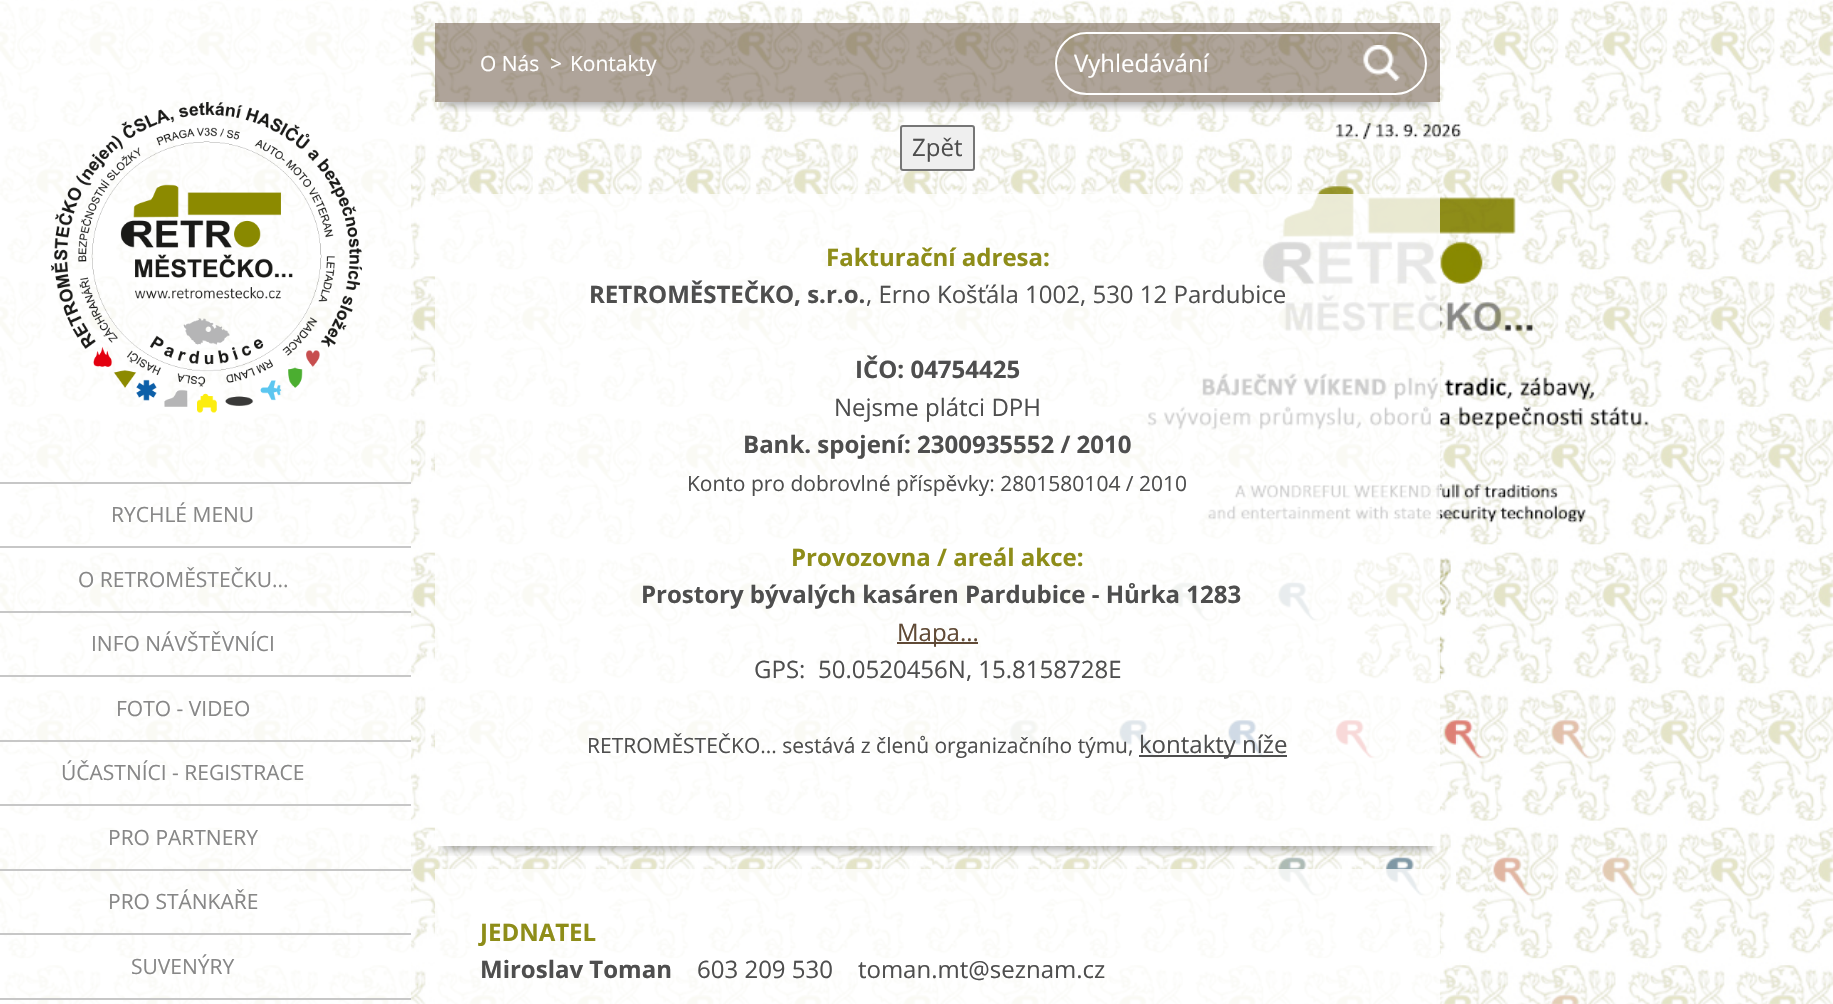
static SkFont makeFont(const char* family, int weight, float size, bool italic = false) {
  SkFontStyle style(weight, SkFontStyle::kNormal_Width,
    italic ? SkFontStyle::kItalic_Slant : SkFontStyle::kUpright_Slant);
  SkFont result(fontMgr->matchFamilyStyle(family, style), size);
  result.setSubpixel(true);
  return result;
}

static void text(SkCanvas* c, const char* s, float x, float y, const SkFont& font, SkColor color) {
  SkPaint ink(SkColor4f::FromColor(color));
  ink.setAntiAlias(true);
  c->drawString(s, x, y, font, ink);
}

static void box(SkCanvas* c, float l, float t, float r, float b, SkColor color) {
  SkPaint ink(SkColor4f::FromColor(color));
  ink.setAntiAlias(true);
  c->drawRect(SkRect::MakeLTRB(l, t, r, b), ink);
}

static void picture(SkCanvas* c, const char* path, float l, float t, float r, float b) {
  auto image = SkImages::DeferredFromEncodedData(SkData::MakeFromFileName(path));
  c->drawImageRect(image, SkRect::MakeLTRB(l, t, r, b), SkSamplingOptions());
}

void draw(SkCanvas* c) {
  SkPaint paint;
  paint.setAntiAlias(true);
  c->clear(0xffffffff);
  picture(c, "img_01.png", 0, 0, 1833, 1004);
  c->save();
  c->clipRect(SkRect::MakeLTRB(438, 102, 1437, 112));
  paint.setColor(0x59000000);
  paint.setMaskFilter(SkMaskFilter::MakeBlur(kNormal_SkBlurStyle, 4.5f));
  c->drawRect(SkRect::MakeLTRB(444, 44, 1431, 105), paint);
  paint.setMaskFilter(nullptr);
  c->restore();
  box(c, 435, 23, 1440, 102, 0x80604a36);
  paint.setStyle(SkPaint::kStroke_Style);
  paint.setStrokeWidth(2);
  paint.setColor(0xffffffff);
  c->drawRoundRect(SkRect::MakeLTRB(1056, 33, 1426, 94), 30.5f, 30.5f, paint);
  SkFont face1 = makeFont("Open Sans", 400, 24);
  text(c, "Vyhledávání", 1074, 72, face1, 0xffffffff);
  picture(c, "img_02.png", 1363, 45, 1400, 81);
  box(c, 0, 1, 411, 444, 0xccffffff);
  picture(c, "img_03.png", 51, 102, 362, 413);
  box(c, 0, 444, 411, 482, 0xccffffff);
  box(c, 0, 484, 411, 1004, 0xccffffff);
  box(c, 0, 482, 411, 484, 0xffc7c7c7);
  box(c, 0, 546, 411, 548, 0xffc7c7c7);
  SkFont face2 = makeFont("Open Sans", 400, 21);
  text(c, "RYCHLÉ MENU", 111, 522, face2, 0xff878787);
  box(c, 0, 611, 411, 613, 0xffc7c7c7);
  text(c, "O RETROMĚSTEČKU...", 78, 587, face2, 0xff878787);
  box(c, 0, 675, 411, 677, 0xffc7c7c7);
  text(c, "INFO NÁVŠTĚVNÍCI", 91, 651, face2, 0xff878787);
  box(c, 0, 740, 411, 742, 0xffc7c7c7);
  text(c, "FOTO - VIDEO", 116, 716, face2, 0xff878787);
  box(c, 0, 804, 411, 806, 0xffc7c7c7);
  text(c, "ÚČASTNÍCI - REGISTRACE", 61, 780, face2, 0xff878787);
  box(c, 0, 869, 411, 871, 0xffc7c7c7);
  text(c, "PRO PARTNERY", 108, 845, face2, 0xff878787);
  box(c, 0, 933, 411, 935, 0xffc7c7c7);
  text(c, "PRO STÁNKAŘE", 108, 909, face2, 0xff878787);
  box(c, 0, 998, 411, 1000, 0xffc7c7c7);
  text(c, "SUVENÝRY", 131, 974, face2, 0xff878787);
  text(c, "O Nás", 480, 71, face2, 0xffffffff);
  text(c, ">", 550, 71, face2, 0xffffffff);
  text(c, "Kontakty", 570, 71, face2, 0xffffffff);
  paint.setStyle(SkPaint::kFill_Style);
  paint.setColor(0xffefefef);
  c->drawRoundRect(SkRect::MakeLTRB(901, 126, 974, 170), 2, 2, paint);
  paint.setStyle(SkPaint::kStroke_Style);
  paint.setColor(0xff767676);
  c->drawRoundRect(SkRect::MakeLTRB(901, 126, 974, 170), 2, 2, paint);
  text(c, "Zpět", 912, 156, face1, 0xff4e4e4e);
  c->save();
  c->clipRect(SkRect::MakeLTRB(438, 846, 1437, 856));
  paint.setStyle(SkPaint::kFill_Style);
  paint.setColor(0x59000000);
  paint.setMaskFilter(SkMaskFilter::MakeBlur(kNormal_SkBlurStyle, 4.5f));
  c->drawRect(SkRect::MakeLTRB(444, 215, 1431, 849), paint);
  paint.setMaskFilter(nullptr);
  c->restore();
  box(c, 435, 194, 1440, 801, 0xccffffff);
  SkFont face3 = makeFont("Open Sans", 700, 24);
  text(c, "Fakturační adresa:", 826, 266, face3, 0xff8e8d19);
  text(c, "RETROMĚSTEČKO, s.r.o.", 589, 303, face3, 0xff4e4e4e);
  text(c, ", Erno Košťála 1002, 530 12 Pardubice", 866, 303, face1, 0xff4e4e4e);
  text(c, "IČO: 04754425", 855, 378, face3, 0xff4e4e4e);
  text(c, "Nejsme plátci DPH", 834, 416, face1, 0xff4e4e4e);
  text(c, "Bank. spojení: 2300935552 / 2010", 743, 453, face3, 0xff4e4e4e);
  text(c, "Konto pro dobrovlné příspěvky: 2801580104 / 2010", 687, 491, face2, 0xff4e4e4e);
  text(c, "Provozovna / areál akce:", 791, 566, face3, 0xff8e8d19);
  text(c, "Prostory bývalých kasáren Pardubice - Hůrka 1283", 641, 603, face3, 0xff4e4e4e);
  box(c, 897, 642, 978, 644, 0xff604a36);
  text(c, "Mapa...", 897, 641, face1, 0xff604a36);
  text(c, "GPS:", 754, 678, face1, 0xff4e4e4e);
  text(c, "50.0520456N, 15.8158728E", 818, 678, face1, 0xff4e4e4e);
  text(c, "RETROMĚSTEČKO... sestává z členů organizačního týmu,", 587, 753, face2, 0xff4e4e4e);
  box(c, 1139, 755, 1287, 757, 0xff4e4e4e);
  text(c, "kontakty níže", 1139, 753, face1, 0xff4e4e4e);
  box(c, 435, 801, 1440, 846, 0xccffffff);
  box(c, 435, 869, 1440, 1004, 0xccffffff);
  text(c, "JEDNATEL", 480, 941, face3, 0xff8e8d19);
  text(c, "Miroslav Toman", 480, 978, face3, 0xff4e4e4e);
  text(c, "603 209 530    toman.mt@seznam.cz", 697, 978, face1, 0xff4e4e4e);
}
